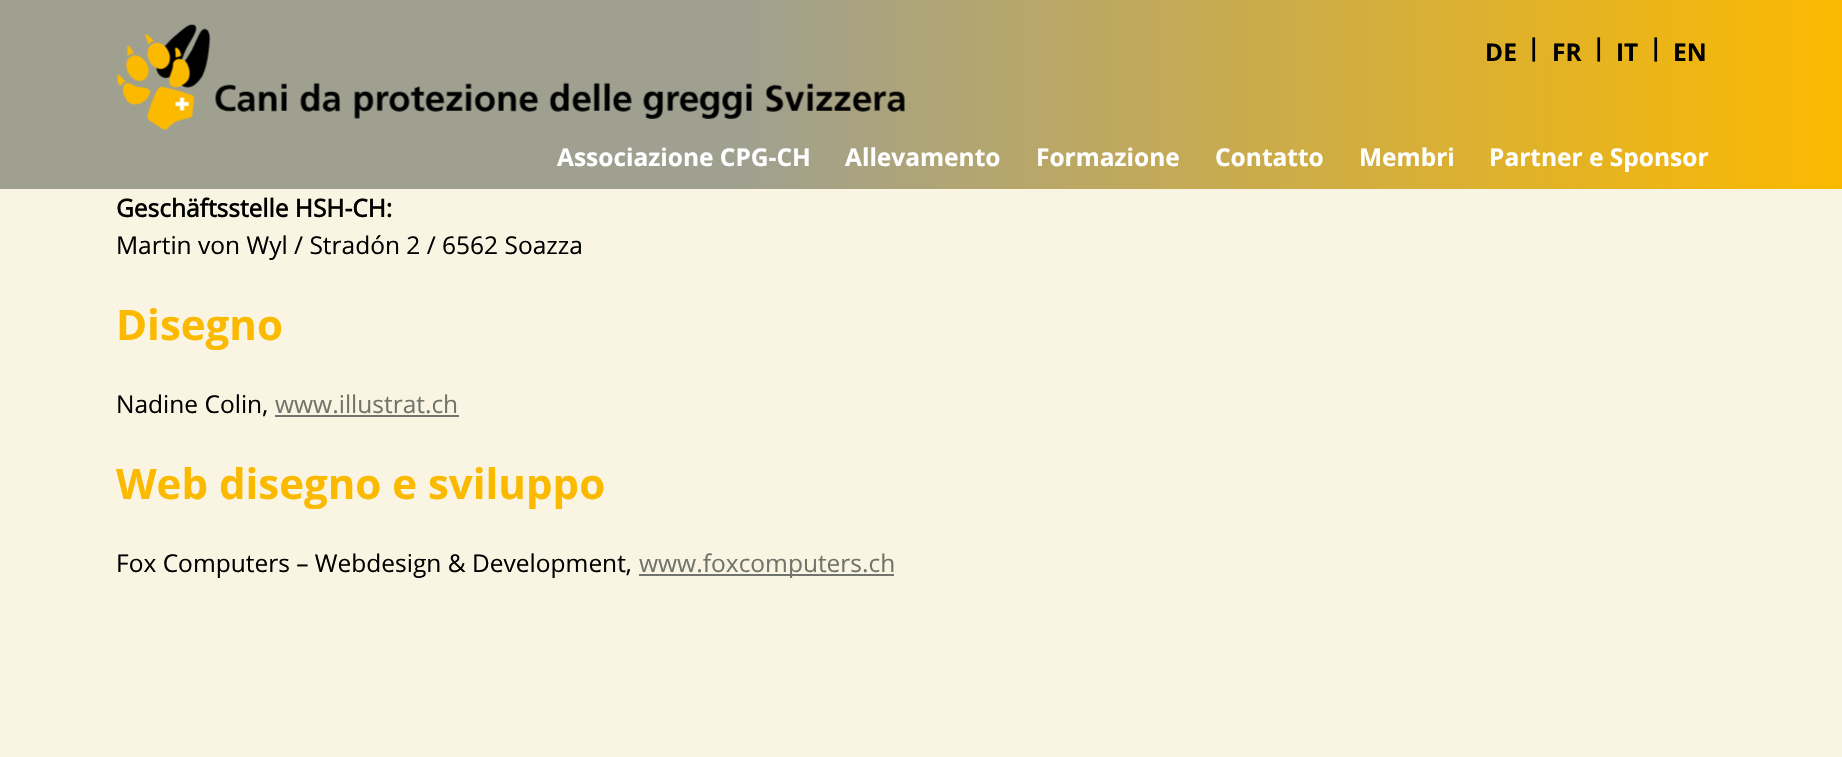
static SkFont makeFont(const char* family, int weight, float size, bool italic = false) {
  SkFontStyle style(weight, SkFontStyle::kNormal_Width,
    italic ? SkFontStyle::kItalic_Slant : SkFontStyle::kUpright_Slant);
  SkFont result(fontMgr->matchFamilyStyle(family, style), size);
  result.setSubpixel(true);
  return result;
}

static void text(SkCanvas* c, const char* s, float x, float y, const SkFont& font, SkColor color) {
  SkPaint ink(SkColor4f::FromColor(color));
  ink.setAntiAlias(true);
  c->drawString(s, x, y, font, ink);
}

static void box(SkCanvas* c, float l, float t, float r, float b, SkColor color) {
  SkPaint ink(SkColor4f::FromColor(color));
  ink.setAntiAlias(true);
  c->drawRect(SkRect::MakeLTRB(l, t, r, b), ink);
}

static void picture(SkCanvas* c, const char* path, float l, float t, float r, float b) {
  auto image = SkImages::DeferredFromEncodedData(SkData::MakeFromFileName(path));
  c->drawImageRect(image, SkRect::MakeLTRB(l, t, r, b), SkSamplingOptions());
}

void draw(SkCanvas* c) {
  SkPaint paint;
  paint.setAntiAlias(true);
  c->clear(0xfff9f5e2);
  {
    const SkColor colors[] = {0xff9fa090, 0xfffbb900};
    const float stops[] = {0.4f, 1};
    const SkPoint ends[] = {{0, 95}, {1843, 94}};
    paint.setShader(SkGradientShader::MakeLinear(ends, colors, stops, 2, SkTileMode::kClamp));
    paint.setAlpha(255);
  }
  c->drawRect(SkRect::MakeLTRB(0, 0, 1842, 189), paint);
  picture(c, "img_01.png", 117, 24, 905, 130);
  SkFont face1 = makeFont("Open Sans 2", 700, 24.5f);
  text(c, "DE", 1485, 61, face1, 0xff000000);
  text(c, "|", 1527, 56, face1, 0xff000000);
  text(c, "FR", 1552, 61, face1, 0xff000000);
  text(c, "|", 1592, 56, face1, 0xff000000);
  text(c, "IT", 1616, 61, face1, 0xff000000);
  text(c, "|", 1649, 56, face1, 0xff000000);
  text(c, "EN", 1673, 61, face1, 0xff000000);
  text(c, "Associazione CPG-CH", 557, 166, face1, 0xffffffff);
  text(c, "Allevamento", 845, 166, face1, 0xffffffff);
  text(c, "Formazione", 1036, 166, face1, 0xffffffff);
  text(c, "Contatto", 1215, 166, face1, 0xffffffff);
  text(c, "Membri", 1359, 166, face1, 0xffffffff);
  text(c, "Partner e Sponsor", 1489, 166, face1, 0xffffffff);
  SkFont face2 = makeFont("Open Sans", 700, 24.5f);
  text(c, "Geschäftsstelle HSH-CH:", 116, 217, face2, 0xff000000);
  SkFont face3 = makeFont("Open Sans", 400, 24.5f);
  text(c, "Martin von Wyl / Stradón 2 / 6562 Soazza", 116, 254, face3, 0xff000000);
  SkFont face4 = makeFont("Open Sans 2", 700, 42);
  text(c, "Disegno", 116, 340, face4, 0xfffbb900);
  text(c, "Nadine Colin,", 116, 413, face3, 0xff000000);
  text(c, "www.illustrat.ch", 275, 413, face3, 0xff71746c);
  box(c, 275, 415, 459, 417, 0xff71746c);
  text(c, "Web disegno e sviluppo", 116, 499, face4, 0xfffbb900);
  text(c, "Fox Computers – Webdesign & Development,", 116, 572, face3, 0xff000000);
  box(c, 639, 574, 894, 576, 0xff71746c);
  text(c, "www.foxcomputers.ch", 639, 572, face3, 0xff71746c);
}
